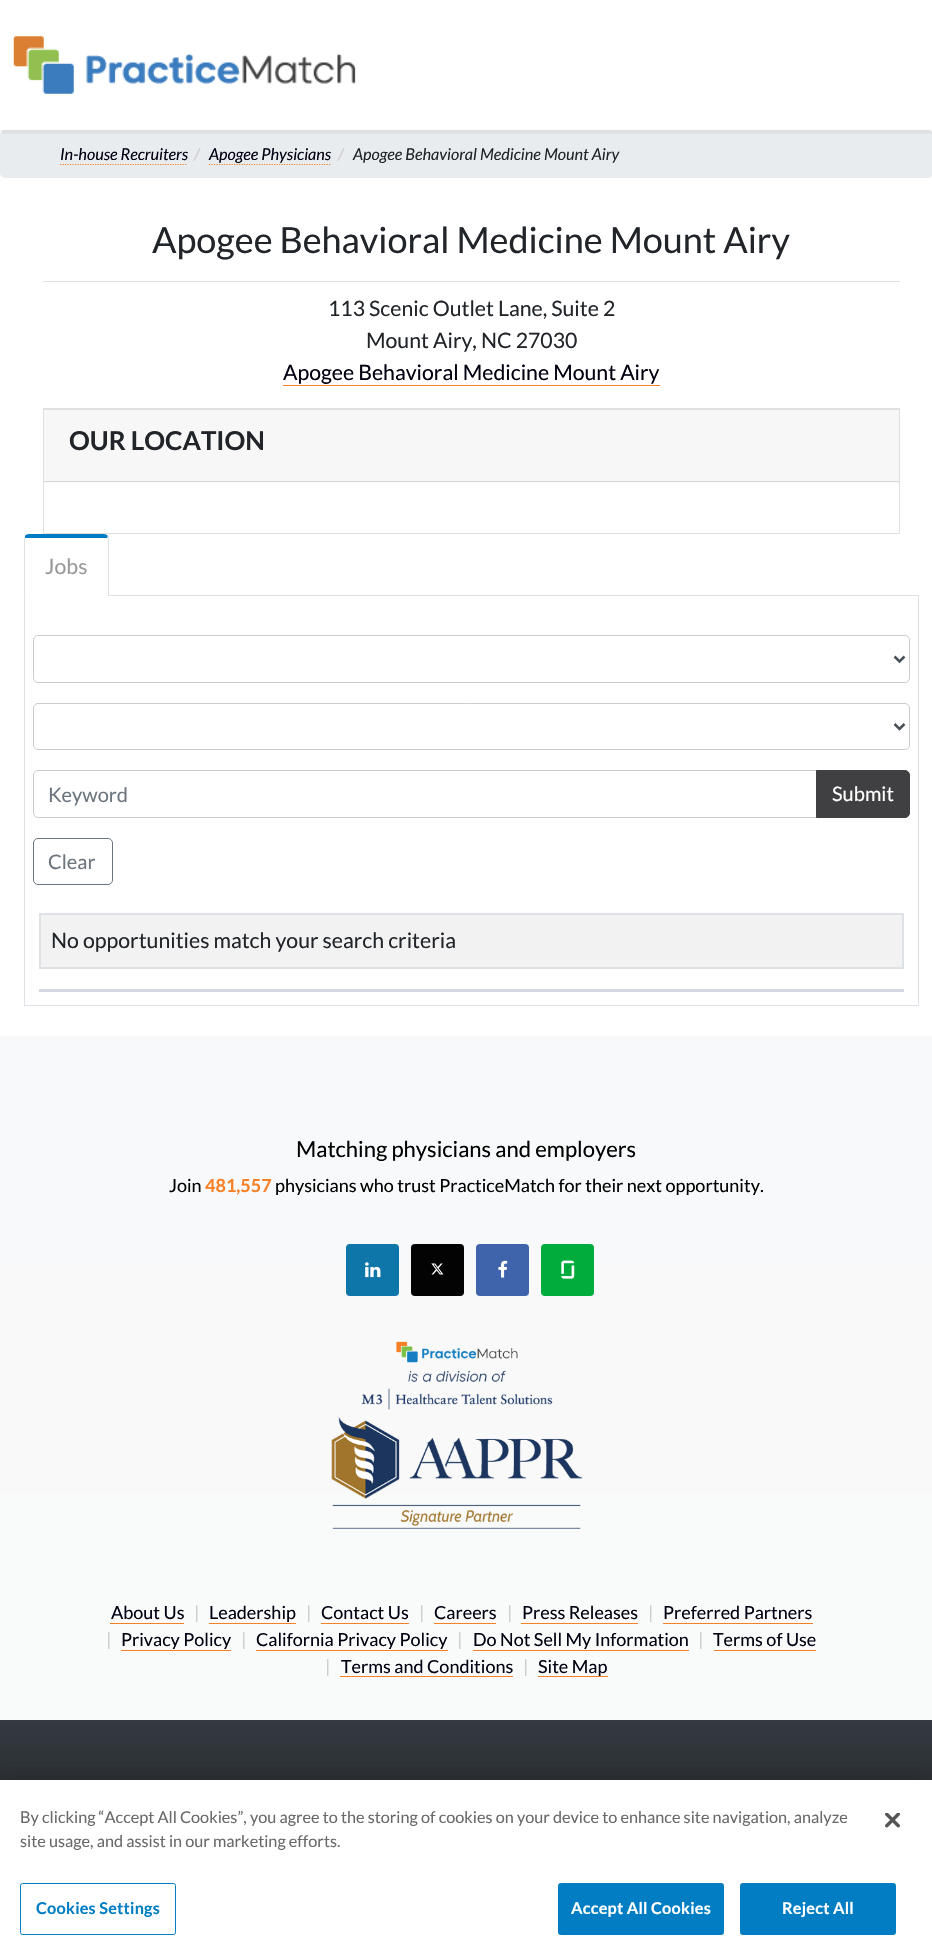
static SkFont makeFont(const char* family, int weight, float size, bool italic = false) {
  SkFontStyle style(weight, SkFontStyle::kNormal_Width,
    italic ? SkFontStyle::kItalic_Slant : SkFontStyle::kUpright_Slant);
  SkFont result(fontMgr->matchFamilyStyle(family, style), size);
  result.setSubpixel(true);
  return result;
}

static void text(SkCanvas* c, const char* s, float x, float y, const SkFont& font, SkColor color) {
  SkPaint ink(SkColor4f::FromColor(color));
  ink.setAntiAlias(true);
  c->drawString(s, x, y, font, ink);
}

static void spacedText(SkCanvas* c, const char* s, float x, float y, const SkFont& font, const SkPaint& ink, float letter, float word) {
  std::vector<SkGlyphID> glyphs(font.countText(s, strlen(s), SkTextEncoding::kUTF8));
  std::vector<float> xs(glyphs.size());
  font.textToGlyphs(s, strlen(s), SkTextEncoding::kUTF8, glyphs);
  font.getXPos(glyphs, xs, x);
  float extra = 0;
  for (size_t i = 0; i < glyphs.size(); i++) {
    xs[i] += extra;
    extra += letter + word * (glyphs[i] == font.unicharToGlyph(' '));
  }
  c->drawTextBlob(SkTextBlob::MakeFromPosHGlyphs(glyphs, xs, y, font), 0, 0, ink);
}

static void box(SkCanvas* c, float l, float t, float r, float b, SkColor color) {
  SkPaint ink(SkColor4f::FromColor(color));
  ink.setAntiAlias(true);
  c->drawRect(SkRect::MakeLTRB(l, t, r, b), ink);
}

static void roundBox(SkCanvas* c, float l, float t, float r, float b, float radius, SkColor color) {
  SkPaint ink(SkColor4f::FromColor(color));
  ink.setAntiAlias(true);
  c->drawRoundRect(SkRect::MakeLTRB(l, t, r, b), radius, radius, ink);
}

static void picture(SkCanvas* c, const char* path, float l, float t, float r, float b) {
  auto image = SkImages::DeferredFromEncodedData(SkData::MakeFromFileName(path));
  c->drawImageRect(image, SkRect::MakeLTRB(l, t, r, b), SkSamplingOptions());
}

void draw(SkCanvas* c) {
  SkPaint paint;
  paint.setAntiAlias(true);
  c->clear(0xffffffff);
  roundBox(c, 0, 130, 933, 178, 5, 0xffe9ecef);
  c->save();
  c->clipRect(SkRect::MakeLTRB(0, 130, 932, 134));
  paint.setColor(0x12000000);
  paint.setMaskFilter(SkMaskFilter::MakeBlur(kNormal_SkBlurStyle, 2.5f));
  c->drawRect(SkRect::MakeLTRB(0, 3, 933, 133), paint);
  paint.setMaskFilter(nullptr);
  c->restore();
  picture(c, "img_01.png", 13, 36, 356, 94);
  SkFont face1 = makeFont("Lato", 400, 16.25f, true);
  text(c, "In-house Recruiters", 60, 160, face1, 0xff000011);
  paint.setStyle(SkPaint::kStroke_Style);
  paint.setStrokeWidth(1.2f);
  paint.setColor(0xfff58025);
  paint.setPathEffect(SkDashPathEffect::Make({{1.25f, 1.25f}}, 0));
  c->drawPath(SkPathBuilder().moveTo(60, 164.5f).lineTo(187.5f, 164.5f).detach(), paint);
  paint.setPathEffect(nullptr);
  text(c, "/", 194, 160, face1, 0xffcccccc);
  text(c, "Apogee Physicians", 209, 160, face1, 0xff000011);
  paint.setPathEffect(SkDashPathEffect::Make({{1.25f, 1.25f}}, 0));
  c->drawPath(SkPathBuilder().moveTo(209, 164.5f).lineTo(331, 164.5f).detach(), paint);
  paint.setPathEffect(nullptr);
  text(c, "/", 338, 160, face1, 0xffcccccc);
  text(c, "Apogee Behavioral Medicine Mount Airy", 353, 160, face1, 0xff212529);
  SkFont face2 = makeFont("Lato", 400, 36);
  text(c, "Apogee Behavioral Medicine Mount Airy", 152, 253, face2, 0xff212529);
  box(c, 43, 281, 900, 282, 0xffdee2e6);
  box(c, 43, 408, 900, 409, 0xffdee2e6);
  SkFont face3 = makeFont("Lato", 400, 21.25f);
  text(c, "113 Scenic Outlet Lane, Suite 2", 328, 316, face3, 0xff212529);
  text(c, "Mount Airy, NC 27030", 366, 348, face3, 0xff212529);
  text(c, "Apogee Behavioral Medicine Mount Airy", 283, 380, face3, 0xff000011);
  box(c, 283, 385, 660, 386, 0xfff58025);
  paint.setStrokeWidth(1);
  paint.setColor(0xffdfdfdf);
  c->drawRect(SkRect::MakeLTRB(43.5f, 409.5f, 899.5f, 533.5f), paint);
  paint.setStyle(SkPaint::kFill_Style);
  paint.setColor(0xfff7f7f7);
  c->drawPath(SkPathBuilder().moveTo(48, 410).lineTo(895, 410).cubicTo(897, 410, 899, 412, 899, 414).lineTo(899, 483).lineTo(44, 483).lineTo(44, 414).cubicTo(44, 412, 46, 410, 48, 410).close().detach(), paint);
  box(c, 44, 481, 899, 482, 0xffd8d8d8);
  SkFont face4 = makeFont("Lato", 700, 26);
  text(c, "OUR LOCATION", 69, 450, face4, 0xff212529);
  box(c, 24, 595, 919, 596, 0xffdee2e6);
  paint.setColor(0xff007dc3);
  c->drawPath(SkPathBuilder().moveTo(29, 534).cubicTo(27, 534, 25, 535, 25, 536).lineTo(25, 538).lineTo(107, 538).lineTo(108, 536).cubicTo(107, 535, 106, 534, 104, 534).close().detach(), paint);
  paint.setColor(0xffdee2e6);
  c->drawPath(SkPathBuilder().moveTo(109, 596).lineTo(108, 595).lineTo(108, 539).lineTo(107, 538).lineTo(108, 536).lineTo(109, 537).close().detach(), paint);
  paint.setColor(0xffffffff);
  c->drawPath(SkPathBuilder().moveTo(108, 596).lineTo(24, 596).lineTo(25, 595).lineTo(108, 595).close().detach(), paint);
  paint.setColor(0xffdee2e6);
  c->drawPath(SkPathBuilder().moveTo(25, 536).lineTo(24, 539).lineTo(24, 596).lineTo(25, 595).lineTo(25, 538).close().detach(), paint);
  text(c, "Jobs", 45, 574, face3, 0xff999999);
  box(c, 918, 596, 919, 1006, 0xffdee2e6);
  box(c, 24, 1005, 919, 1006, 0xffdee2e6);
  box(c, 24, 596, 25, 1006, 0xffdee2e6);
  paint.setStyle(SkPaint::kStroke_Style);
  paint.setColor(0xffcccccc);
  c->drawRoundRect(SkRect::MakeLTRB(33.5f, 635.5f, 909.5f, 682.5f), 4.5f, 4.5f, paint);
  paint.setStrokeWidth(2.5f);
  paint.setColor(0xff495057);
  c->drawPath(SkPathBuilder().moveTo(894.5f, 656.5f).lineTo(899.5f, 661.5f).lineTo(904.5f, 656.5f).detach(), paint);
  paint.setStrokeWidth(1);
  paint.setColor(0xffcccccc);
  c->drawRoundRect(SkRect::MakeLTRB(33.5f, 703.5f, 909.5f, 749.5f), 4.5f, 4.5f, paint);
  paint.setStrokeWidth(2.5f);
  paint.setColor(0xff495057);
  c->drawPath(SkPathBuilder().moveTo(894.5f, 724).lineTo(899.5f, 729).lineTo(904.5f, 724).detach(), paint);
  paint.setStrokeWidth(1);
  paint.setColor(0xffcccccc);
  c->drawPath(SkPathBuilder().moveTo(38, 770.5f).lineTo(817.5f, 770.5f).lineTo(817.5f, 817.5f).lineTo(38, 817.5f).cubicTo(35.5f, 817.5f, 33.5f, 815.5f, 33.5f, 813).lineTo(33.5f, 775).cubicTo(33.5f, 772.5f, 35.5f, 770.5f, 38, 770.5f).close().detach(), paint);
  SkFont face5 = makeFont("Lato", 400, 20);
  text(c, "Keyword", 48, 802, face5, 0xff6c757d);
  paint.setStyle(SkPaint::kFill_Style);
  paint.setColor(0xff404042);
  c->drawPath(SkPathBuilder().moveTo(816.5f, 770.5f).lineTo(905, 770.5f).cubicTo(907.5f, 770.5f, 909.5f, 772.5f, 909.5f, 775).lineTo(909.5f, 813).cubicTo(909.5f, 815.5f, 907.5f, 817.5f, 905, 817.5f).lineTo(816.5f, 817.5f).close().detach(), paint);
  paint.setStyle(SkPaint::kStroke_Style);
  paint.setColor(0xff414042);
  c->drawPath(SkPathBuilder().moveTo(816.5f, 770.5f).lineTo(905, 770.5f).cubicTo(907.5f, 770.5f, 909.5f, 772.5f, 909.5f, 775).lineTo(909.5f, 813).cubicTo(909.5f, 815.5f, 907.5f, 817.5f, 905, 817.5f).lineTo(816.5f, 817.5f).close().detach(), paint);
  text(c, "Submit", 832, 801, face5, 0xffffffff);
  paint.setColor(0xff6c757d);
  c->drawRoundRect(SkRect::MakeLTRB(33.5f, 838.5f, 112.5f, 884.5f), 4.5f, 4.5f, paint);
  text(c, "Clear", 48, 869, face5, 0xff6c757d);
  box(c, 39, 913, 904, 914, 0xffdee2e6);
  box(c, 903, 913, 904, 969, 0xffdee2e6);
  box(c, 39, 968, 904, 969, 0xffdee2e6);
  box(c, 39, 913, 40, 969, 0xffdee2e6);
  paint.setStyle(SkPaint::kFill_Style);
  paint.setColor(0xfff2f2f2);
  c->drawRect(SkRect::MakeLTRB(40.5f, 914.5f, 902.5f, 967.5f), paint);
  paint.setStyle(SkPaint::kStroke_Style);
  paint.setColor(0xffdee2e6);
  c->drawRect(SkRect::MakeLTRB(40.5f, 914.5f, 902.5f, 967.5f), paint);
  text(c, "No opportunities match your search criteria", 51, 948, face3, 0xff212529);
  roundBox(c, 39, 989, 904, 992, 1.5f, 0xfff0f8ff);
  box(c, 39, 989, 904, 992, 0x1f000000);
  paint.setStyle(SkPaint::kFill_Style);
  {
    const SkColor colors[] = {0xfffafafa, 0xfff8f9fa};
    const float stops[] = {0, 1};
    const SkPoint ends[] = {{466, 1951}, {466, 1036}};
    paint.setShader(SkGradientShader::MakeLinear(ends, colors, stops, 2, SkTileMode::kClamp));
    paint.setAlpha(255);
  }
  c->drawRect(SkRect::MakeLTRB(0, 1036, 932, 1720), paint);
  SkFont face6 = makeFont("Lato", 400, 22);
  text(c, "Matching physicians and employers", 296, 1157, face6, 0xff000000);
  SkFont face7 = makeFont("Lato", 400, 18);
  text(c, "Join", 169, 1192, face7, 0xff000000);
  SkFont face8 = makeFont("Lato", 700, 18);
  text(c, "481,557", 205, 1192, face8, 0xfff58025);
  text(c, "physicians who trust PracticeMatch for their next opportunity.", 275, 1192, face7, 0xff000000);
  roundBox(c, 346, 1244, 399, 1296, 4, 0xff0e76a8);
  picture(c, "img_02.png", 365, 1262, 381, 1278);
  roundBox(c, 411, 1244, 464, 1296, 4, 0xff030303);
  picture(c, "img_03.png", 431, 1263, 444, 1275);
  roundBox(c, 476, 1244, 529, 1296, 4, 0xff4064ac);
  picture(c, "img_04.png", 498, 1260, 508, 1278);
  roundBox(c, 541, 1244, 594, 1296, 4, 0xff00ac3c);
  picture(c, "img_05.png", 561, 1260, 575, 1279);
  picture(c, "img_06.png", 331, 1341, 583, 1529);
  text(c, "About Us", 111, 1619, face7, 0xff000011);
  box(c, 110, 1623, 184, 1624, 0xfff58025);
  text(c, "|", 194, 1619, face7, 0xffcccccc);
  text(c, "Leadership", 209, 1619, face7, 0xff000011);
  box(c, 209, 1623, 296, 1624, 0xfff58025);
  text(c, "|", 306, 1619, face7, 0xffcccccc);
  text(c, "Contact Us", 321, 1619, face7, 0xff000011);
  box(c, 321, 1623, 409, 1624, 0xfff58025);
  text(c, "|", 419, 1619, face7, 0xffcccccc);
  text(c, "Careers", 434, 1619, face7, 0xff000011);
  box(c, 434, 1623, 496, 1624, 0xfff58025);
  text(c, "|", 507, 1619, face7, 0xffcccccc);
  text(c, "Press Releases", 522, 1619, face7, 0xff000011);
  box(c, 521, 1623, 638, 1624, 0xfff58025);
  text(c, "|", 648, 1619, face7, 0xffcccccc);
  text(c, "Preferred Partners", 663, 1619, face7, 0xff000011);
  box(c, 663, 1623, 813, 1624, 0xfff58025);
  text(c, "|", 106, 1646, face7, 0xffcccccc);
  text(c, "Privacy Policy", 121, 1646, face7, 0xff000011);
  box(c, 121, 1650, 231, 1651, 0xfff58025);
  text(c, "|", 241, 1646, face7, 0xffcccccc);
  text(c, "California Privacy Policy", 256, 1646, face7, 0xff000011);
  box(c, 256, 1650, 448, 1651, 0xfff58025);
  text(c, "|", 457, 1646, face7, 0xffcccccc);
  text(c, "Do Not Sell My Information", 473, 1646, face7, 0xff000011);
  box(c, 473, 1650, 689, 1651, 0xfff58025);
  text(c, "|", 698, 1646, face7, 0xffcccccc);
  text(c, "Terms of Use", 713, 1646, face7, 0xff000011);
  box(c, 714, 1650, 816, 1651, 0xfff58025);
  text(c, "|", 325, 1673, face7, 0xffcccccc);
  text(c, "Terms and Conditions", 341, 1673, face7, 0xff000011);
  box(c, 340, 1676, 513, 1677, 0xfff58025);
  text(c, "|", 523, 1673, face7, 0xffcccccc);
  box(c, 538, 1676, 608, 1677, 0xfff58025);
  text(c, "Site Map", 538, 1673, face7, 0xff000011);
  {
    const SkColor colors[] = {0xff151515, 0xff343a40};
    const float stops[] = {0, 1};
    const SkPoint ends[] = {{466, 1951}, {466, 1720}};
    paint.setShader(SkGradientShader::MakeLinear(ends, colors, stops, 2, SkTileMode::kClamp));
    paint.setAlpha(255);
  }
  c->drawRect(SkRect::MakeLTRB(0, 1720, 932, 1780), paint);
  paint.setShader(nullptr);
  paint.setColor(0x33000000);
  paint.setMaskFilter(SkMaskFilter::MakeBlur(kNormal_SkBlurStyle, 11));
  c->drawRect(SkRect::MakeLTRB(0, 1780, 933, 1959), paint);
  paint.setMaskFilter(nullptr);
  box(c, 0, 1780, 932, 1958, 0xffffffff);
  SkFont face9 = makeFont("Lato", 400, 16.25f);
  text(c, "By clicking “Accept All Cookies”, you agree to the storing of cookies on your device to enhance site navigation, analyze", 20, 1823, face9, 0xff696969);
  text(c, "site usage, and assist in our marketing efforts.", 20, 1847, face9, 0xff696969);
  paint.setStyle(SkPaint::kStroke_Style);
  paint.setColor(0xff007dc3);
  c->drawRoundRect(SkRect::MakeLTRB(20.5f, 1883.5f, 175.5f, 1934.5f), 2, 2, paint);
  SkFont face10 = makeFont("Lato", 700, 16.25f);
  paint.setStyle(SkPaint::kFill_Style);
  spacedText(c, "Cookies Settings", 36, 1914, face10, paint, 0.2f, 0);
  c->drawRoundRect(SkRect::MakeLTRB(558.5f, 1883.5f, 723.5f, 1934.5f), 2, 2, paint);
  paint.setStyle(SkPaint::kStroke_Style);
  c->drawRoundRect(SkRect::MakeLTRB(558.5f, 1883.5f, 723.5f, 1934.5f), 2, 2, paint);
  paint.setStyle(SkPaint::kFill_Style);
  paint.setColor(0xffffffff);
  spacedText(c, "Accept All Cookies", 571, 1914, face10, paint, 0.2f, 0);
  paint.setColor(0xff007dc3);
  c->drawRoundRect(SkRect::MakeLTRB(740.5f, 1883.5f, 895.5f, 1934.5f), 2, 2, paint);
  paint.setStyle(SkPaint::kStroke_Style);
  c->drawRoundRect(SkRect::MakeLTRB(740.5f, 1883.5f, 895.5f, 1934.5f), 2, 2, paint);
  paint.setStyle(SkPaint::kFill_Style);
  paint.setColor(0xffffffff);
  spacedText(c, "Reject All", 782, 1914, face10, paint, 0.2f, 0);
  picture(c, "img_07.png", 885, 1813, 900, 1828);
}
